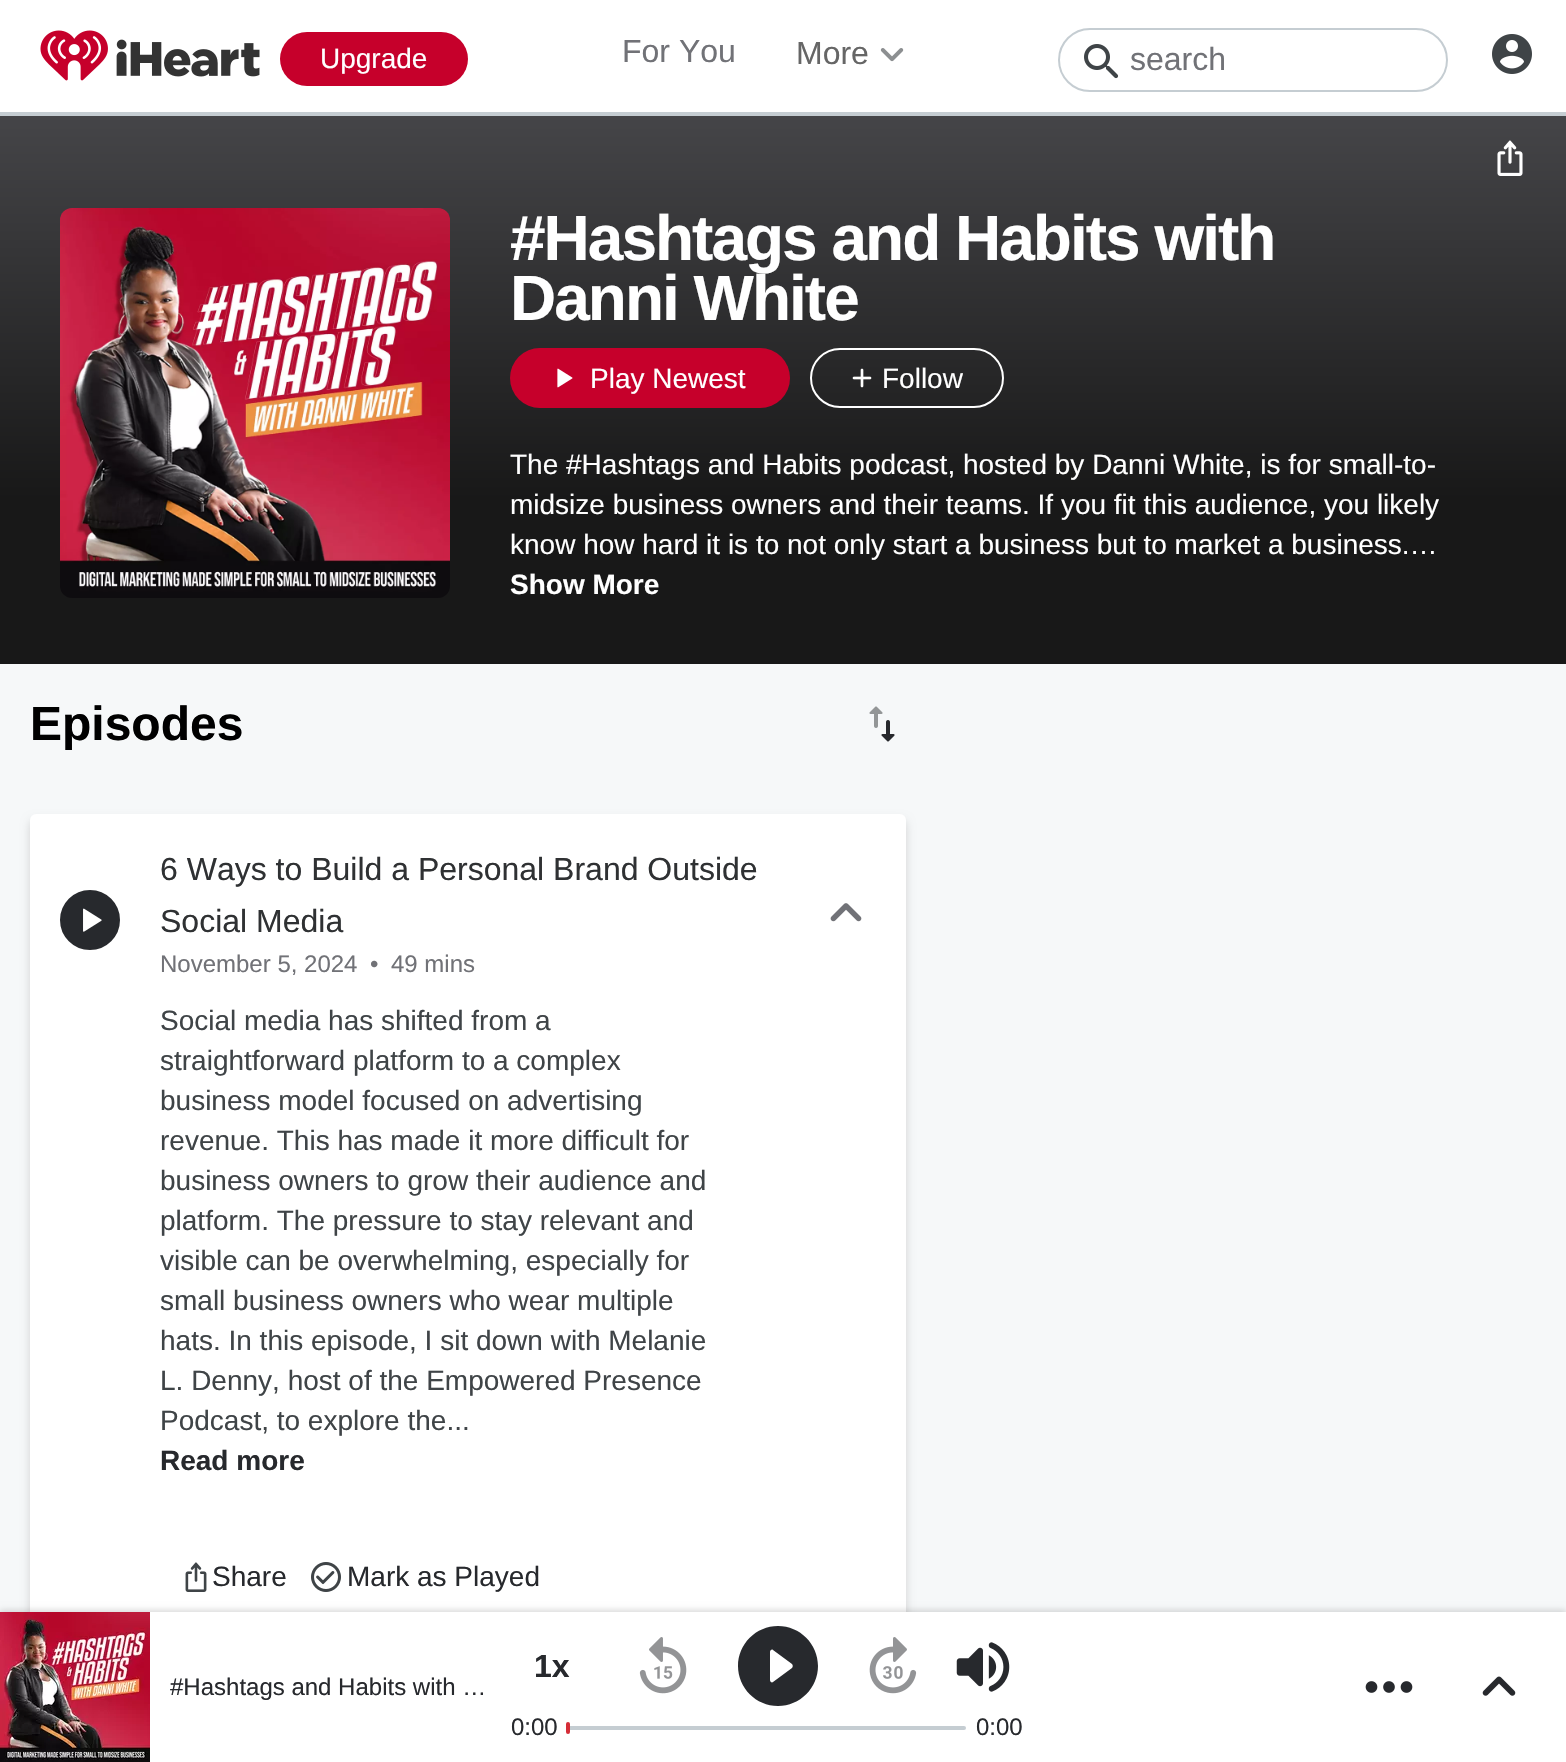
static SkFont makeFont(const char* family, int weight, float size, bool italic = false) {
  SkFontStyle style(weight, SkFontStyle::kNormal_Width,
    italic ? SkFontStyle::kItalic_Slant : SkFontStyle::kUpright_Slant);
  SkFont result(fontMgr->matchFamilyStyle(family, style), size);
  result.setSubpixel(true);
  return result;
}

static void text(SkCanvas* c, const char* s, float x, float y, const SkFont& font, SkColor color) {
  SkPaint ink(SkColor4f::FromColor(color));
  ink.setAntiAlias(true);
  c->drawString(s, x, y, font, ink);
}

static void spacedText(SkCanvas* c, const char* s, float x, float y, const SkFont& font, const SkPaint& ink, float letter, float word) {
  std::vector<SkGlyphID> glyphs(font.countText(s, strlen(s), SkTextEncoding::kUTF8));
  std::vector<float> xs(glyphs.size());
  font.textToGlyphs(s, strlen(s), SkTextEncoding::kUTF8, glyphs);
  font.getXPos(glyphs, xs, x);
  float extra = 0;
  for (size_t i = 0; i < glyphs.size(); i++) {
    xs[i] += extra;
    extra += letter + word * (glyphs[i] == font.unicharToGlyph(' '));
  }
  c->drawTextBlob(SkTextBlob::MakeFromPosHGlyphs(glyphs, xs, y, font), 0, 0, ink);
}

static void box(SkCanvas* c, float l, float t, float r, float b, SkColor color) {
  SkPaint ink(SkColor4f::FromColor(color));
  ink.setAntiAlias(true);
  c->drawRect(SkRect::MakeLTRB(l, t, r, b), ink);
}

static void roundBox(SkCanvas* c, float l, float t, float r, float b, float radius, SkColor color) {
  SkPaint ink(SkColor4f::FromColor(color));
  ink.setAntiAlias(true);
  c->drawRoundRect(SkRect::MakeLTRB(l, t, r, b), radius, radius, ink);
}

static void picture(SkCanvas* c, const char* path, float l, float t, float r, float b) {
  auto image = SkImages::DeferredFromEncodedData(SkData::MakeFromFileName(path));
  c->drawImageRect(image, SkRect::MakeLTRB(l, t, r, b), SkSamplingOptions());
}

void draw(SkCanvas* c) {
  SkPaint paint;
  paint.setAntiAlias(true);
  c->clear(0xffffffff);
  box(c, 0, 112, 1566, 116, 0xffc5cdd2);
  picture(c, "img_01.png", 40, 30, 260, 81);
  roundBox(c, 280, 32, 468, 86, 27, 0xffc6002b);
  SkFont face1 = makeFont("Liberation Sans", 400, 28);
  text(c, "Upgrade", 320, 68, face1, 0xffffffff);
  SkFont face2 = makeFont("Liberation Sans", 400, 32);
  text(c, "For You", 622, 62, face2, 0xff717277);
  text(c, "More", 796, 64, face2, 0xff666666);
  picture(c, "img_02.png", 880, 48, 904, 62);
  paint.setStyle(SkPaint::kStroke_Style);
  paint.setStrokeWidth(2);
  paint.setColor(0xffc5cdd2);
  c->drawRoundRect(SkRect::MakeLTRB(1059, 29, 1447, 91), 31, 31, paint);
  picture(c, "img_03.png", 1084, 44, 1119, 79);
  text(c, "search", 1130, 70, face2, 0xff717277);
  picture(c, "img_04.png", 1492, 34, 1532, 74);
  paint.setStyle(SkPaint::kFill_Style);
  {
    const SkColor colors[] = {0xff454548, 0xff181818};
    const float stops[] = {0, 0.7f};
    const SkPoint ends[] = {{783, 116}, {783, 664}};
    paint.setShader(SkGradientShader::MakeLinear(ends, colors, stops, 2, SkTileMode::kClamp));
    paint.setAlpha(255);
  }
  c->drawRect(SkRect::MakeLTRB(0, 116, 1566, 664), paint);
  picture(c, "img_05.png", 60, 208, 450, 598);
  SkFont face3 = makeFont("Liberation Sans", 700, 64);
  paint.setShader(nullptr);
  paint.setColor(0xffffffff);
  spacedText(c, "#Hashtags and Habits with", 510, 260, face3, paint, -2, 0);
  spacedText(c, "Danni White", 510, 320, face3, paint, -2, 0);
  roundBox(c, 510, 348, 790, 408, 30, 0xffc6002b);
  picture(c, "img_06.png", 557, 368, 573, 388);
  text(c, "Play Newest", 590, 388, face1, 0xffffffff);
  picture(c, "img_07.png", 1497, 140, 1523, 176);
  paint.setStyle(SkPaint::kStroke_Style);
  c->drawRoundRect(SkRect::MakeLTRB(811, 349, 1003, 407), 29, 29, paint);
  picture(c, "img_08.png", 852, 368, 872, 388);
  text(c, "Follow", 882, 388, face1, 0xffffffff);
  text(c, "The #Hashtags and Habits podcast, hosted by Danni White, is for small-to-", 510, 474, face1, 0xffffffff);
  text(c, "midsize business owners and their teams. If you fit this audience, you likely", 510, 514, face1, 0xffffffff);
  text(c, "know how hard it is to not only start a business but to market a business.…", 510, 554, face1, 0xffffffff);
  SkFont face4 = makeFont("Liberation Sans", 700, 28);
  text(c, "Show More", 510, 594, face4, 0xffffffff);
  box(c, 0, 664, 1566, 1612, 0xfff6f8f9);
  SkFont face5 = makeFont("Liberation Sans", 700, 48);
  text(c, "Episodes", 30, 740, face5, 0xff000000);
  picture(c, "img_09.png", 869, 706, 895, 742);
  paint.setStyle(SkPaint::kFill_Style);
  paint.setColor(0x26000000);
  paint.setMaskFilter(SkMaskFilter::MakeBlur(kNormal_SkBlurStyle, 5));
  c->drawRoundRect(SkRect::MakeLTRB(30, 820, 906, 1672), 6, 6, paint);
  paint.setMaskFilter(nullptr);
  roundBox(c, 30, 814, 906, 1666, 6, 0xffffffff);
  paint.setColor(0xff27292d);
  c->drawCircle(90, 920, 29, paint);
  paint.setStyle(SkPaint::kStroke_Style);
  c->drawCircle(90, 920, 29, paint);
  picture(c, "img_10.png", 83, 908, 102, 932);
  text(c, "6 Ways to Build a Personal Brand Outside", 160, 880, face2, 0xff2f3133);
  text(c, "Social Media", 160, 932, face2, 0xff2f3133);
  SkFont face6 = makeFont("Liberation Sans", 400, 24);
  text(c, "November 5, 2024", 160, 972, face6, 0xff717277);
  text(c, "•", 370, 972, face6, 0xff717277);
  text(c, "49 mins", 391, 972, face6, 0xff717277);
  picture(c, "img_11.png", 830, 903, 862, 922);
  text(c, "Social media has shifted from a", 160, 1030, face1, 0xff3f4447);
  text(c, "straightforward platform to a complex", 160, 1070, face1, 0xff3f4447);
  text(c, "business model focused on advertising", 160, 1110, face1, 0xff3f4447);
  text(c, "revenue. This has made it more difficult for", 160, 1150, face1, 0xff3f4447);
  text(c, "business owners to grow their audience and", 160, 1190, face1, 0xff3f4447);
  text(c, "platform. The pressure to stay relevant and", 160, 1230, face1, 0xff3f4447);
  text(c, "visible can be overwhelming, especially for", 160, 1270, face1, 0xff3f4447);
  text(c, "small business owners who wear multiple", 160, 1310, face1, 0xff3f4447);
  text(c, "hats. In this episode, I sit down with Melanie", 160, 1350, face1, 0xff3f4447);
  text(c, "L. Denny, host of the Empowered Presence", 160, 1390, face1, 0xff3f4447);
  text(c, "Podcast, to explore the...", 160, 1430, face1, 0xff3f4447);
  text(c, "Read more", 160, 1470, face4, 0xff27292d);
  picture(c, "img_12.png", 185, 1562, 207, 1592);
  text(c, "Share", 212, 1586, face1, 0xff27292d);
  picture(c, "img_13.png", 311, 1562, 341, 1592);
  text(c, "Mark as Played", 347, 1586, face1, 0xff27292d);
  paint.setStyle(SkPaint::kFill_Style);
  paint.setColor(0x26000000);
  paint.setMaskFilter(SkMaskFilter::MakeBlur(kNormal_SkBlurStyle, 3));
  c->drawRect(SkRect::MakeLTRB(0, 1610, 1566, 1760), paint);
  paint.setMaskFilter(nullptr);
  box(c, 150, 1612, 1566, 1762, 0xffffffff);
  picture(c, "img_14.png", 0, 1612, 150, 1762);
  text(c, "#Hashtags and Habits with …", 170, 1695, face6, 0xff27292d);
  SkFont face7 = makeFont("Liberation Sans", 700, 32);
  text(c, "1x", 534, 1677, face7, 0xff27292d);
  picture(c, "img_15.png", 639, 1637, 687, 1694);
  paint.setColor(0xff27292d);
  c->drawPath(SkPathBuilder().moveTo(778, 1626).cubicTo(756, 1626, 738, 1644, 738, 1666).cubicTo(738, 1688, 756, 1706, 778, 1706).cubicTo(800, 1706, 818, 1688, 818, 1666).cubicTo(818, 1644, 800, 1626, 778, 1626).close().moveTo(770, 1680).lineTo(770, 1652).cubicTo(770, 1650, 772, 1649, 773, 1650).lineTo(792, 1664).cubicTo(793, 1665, 793, 1667, 792, 1668).lineTo(773, 1682).cubicTo(772, 1683, 770, 1682, 770, 1680).close().detach(), paint);
  picture(c, "img_16.png", 869, 1637, 917, 1694);
  picture(c, "img_17.png", 956, 1642, 1010, 1692);
  text(c, "0:00", 511, 1735, face6, 0xff27292d);
  roundBox(c, 568, 1726, 966, 1730, 2, 0xffc5cdd2);
  roundBox(c, 566, 1722, 570, 1734, 2, 0xffd52d37);
  text(c, "0:00", 976, 1735, face6, 0xff27292d);
  picture(c, "img_18.png", 1365, 1681, 1413, 1693);
  picture(c, "img_19.png", 1482, 1676, 1516, 1696);
}
